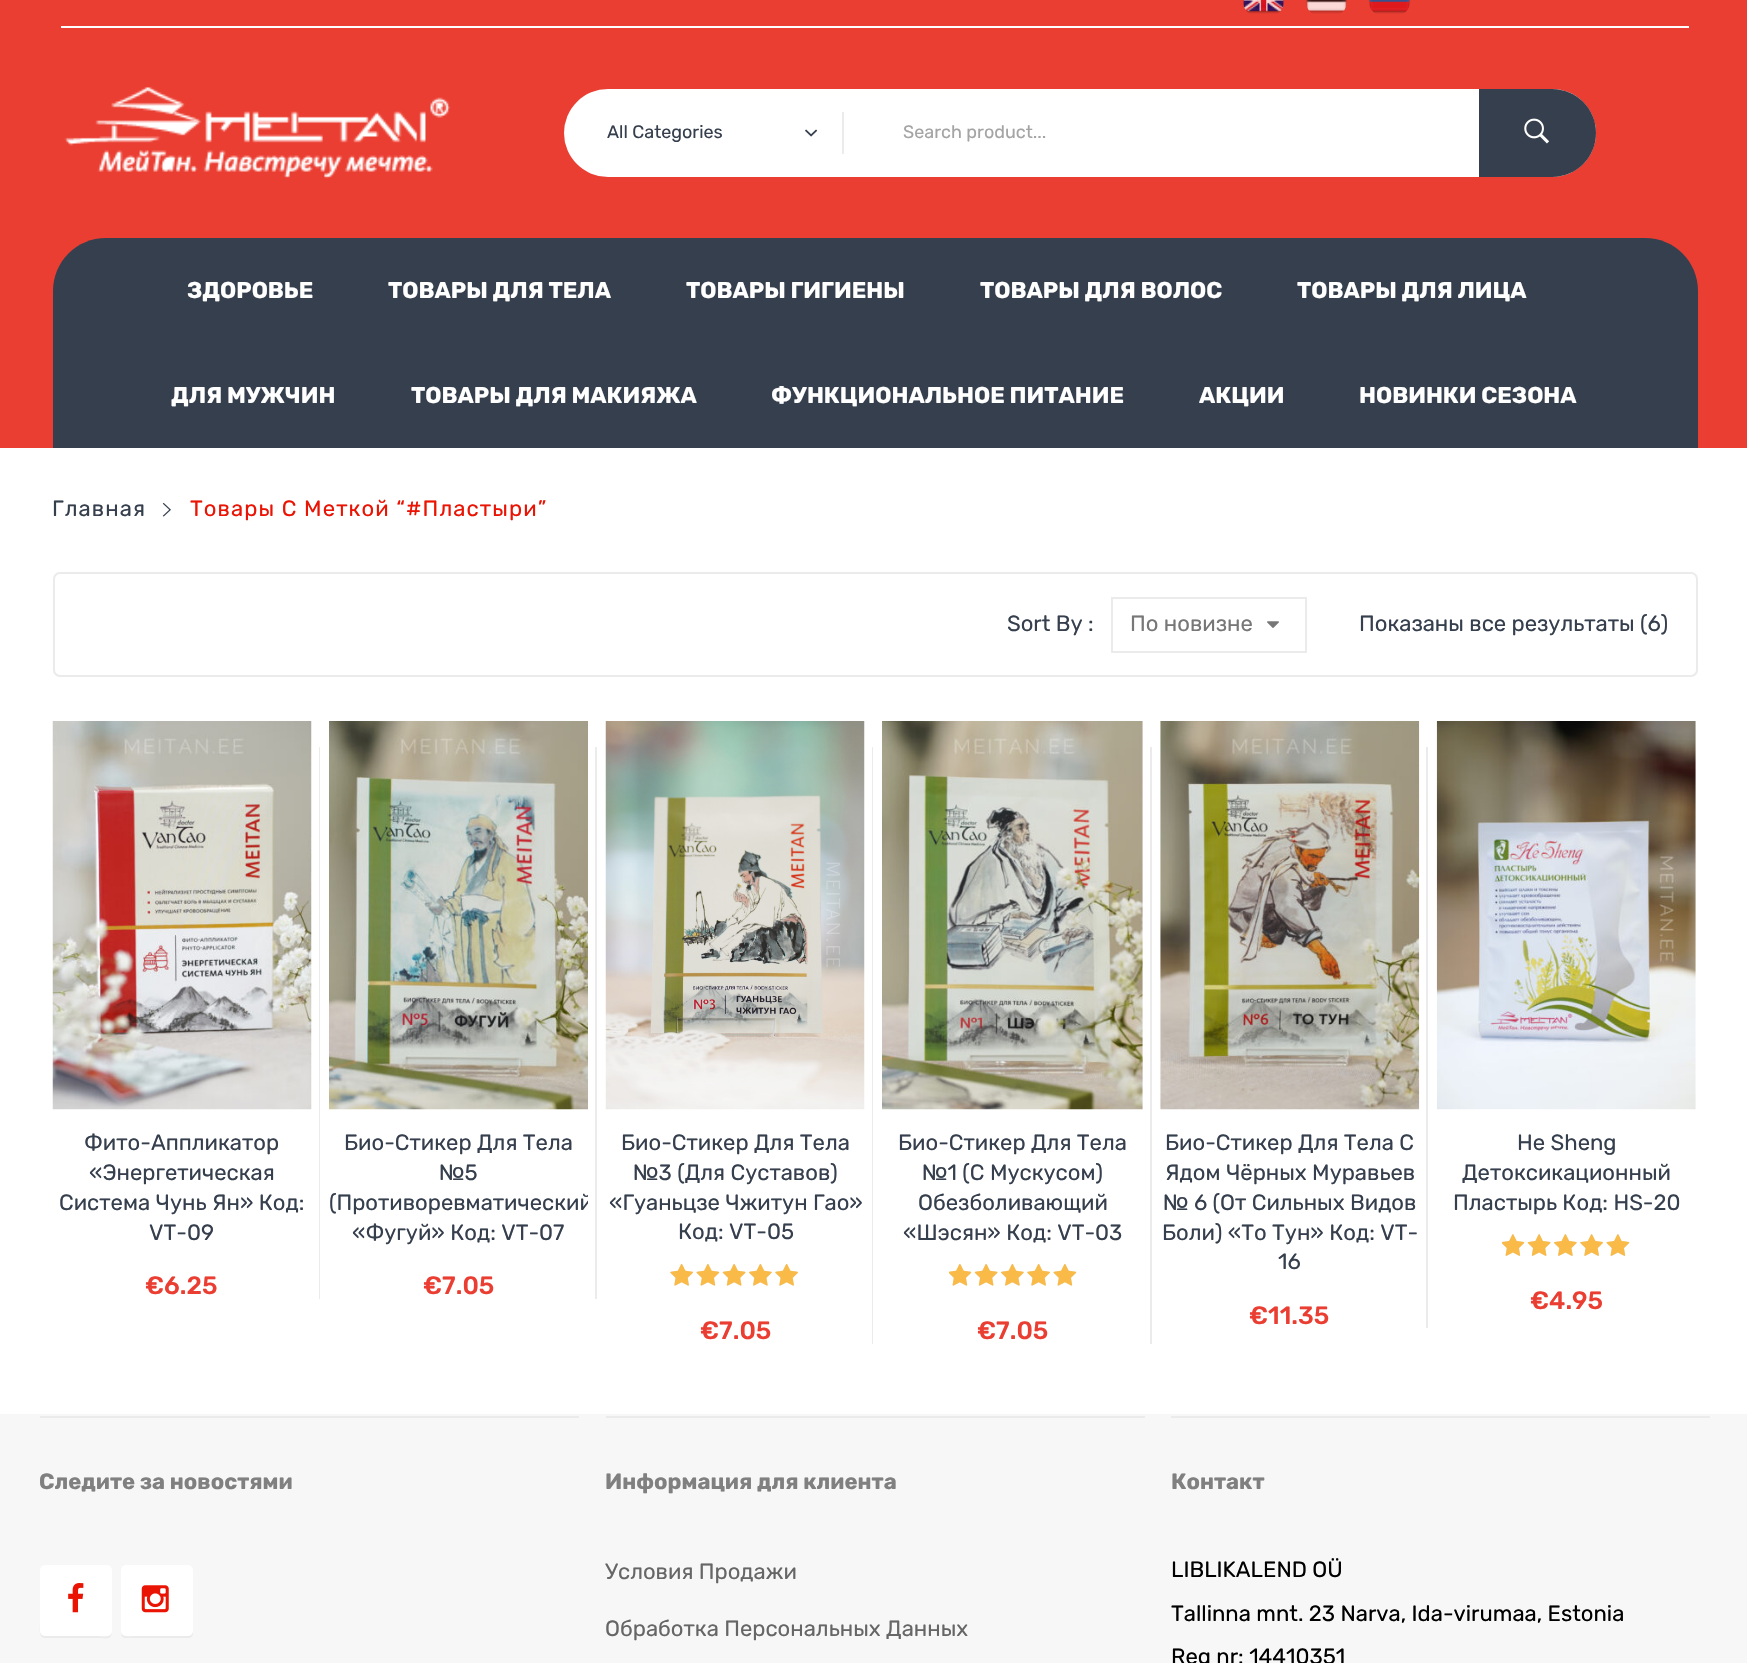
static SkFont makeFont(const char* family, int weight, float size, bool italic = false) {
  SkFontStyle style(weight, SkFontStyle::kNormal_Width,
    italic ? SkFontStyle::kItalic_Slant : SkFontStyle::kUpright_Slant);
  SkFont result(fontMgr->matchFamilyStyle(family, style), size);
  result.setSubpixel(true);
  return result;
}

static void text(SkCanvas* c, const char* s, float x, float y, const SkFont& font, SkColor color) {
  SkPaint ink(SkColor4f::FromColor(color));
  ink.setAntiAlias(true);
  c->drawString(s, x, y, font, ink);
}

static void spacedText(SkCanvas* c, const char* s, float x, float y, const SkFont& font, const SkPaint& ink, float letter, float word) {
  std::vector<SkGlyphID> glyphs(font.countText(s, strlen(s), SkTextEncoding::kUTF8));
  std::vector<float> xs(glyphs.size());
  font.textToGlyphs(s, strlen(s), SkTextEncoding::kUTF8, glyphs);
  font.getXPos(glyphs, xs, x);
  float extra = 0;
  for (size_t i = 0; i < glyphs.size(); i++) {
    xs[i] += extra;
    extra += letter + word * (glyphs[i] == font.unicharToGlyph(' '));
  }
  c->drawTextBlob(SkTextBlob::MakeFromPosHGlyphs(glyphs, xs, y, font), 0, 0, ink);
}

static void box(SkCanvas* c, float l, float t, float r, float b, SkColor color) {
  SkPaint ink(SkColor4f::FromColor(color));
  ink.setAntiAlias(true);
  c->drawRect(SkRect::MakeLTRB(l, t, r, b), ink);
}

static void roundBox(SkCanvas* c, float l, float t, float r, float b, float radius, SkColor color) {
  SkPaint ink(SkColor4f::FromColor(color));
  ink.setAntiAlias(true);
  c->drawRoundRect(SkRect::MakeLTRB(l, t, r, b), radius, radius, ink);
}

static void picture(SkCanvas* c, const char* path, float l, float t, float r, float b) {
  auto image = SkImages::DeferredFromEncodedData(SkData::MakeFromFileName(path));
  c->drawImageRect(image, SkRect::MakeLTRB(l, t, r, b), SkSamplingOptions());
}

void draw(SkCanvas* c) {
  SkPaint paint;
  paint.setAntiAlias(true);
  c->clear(0xffffffff);
  box(c, 0, 0, 1747, 448, 0xffeb3e32);
  box(c, 61, 26, 1689, 28, 0xffffffff);
  picture(c, "img_01.png", 1242, 0, 1285, 14);
  picture(c, "img_02.png", 1306, 0, 1347, 14);
  picture(c, "img_03.png", 1368, 0, 1411, 14);
  picture(c, "img_04.png", 64, 87, 450, 179);
  roundBox(c, 564, 89, 1596, 177, 44, 0xffffffff);
  box(c, 842, 112, 844, 154, 0xffebebeb);
  SkFont face1 = makeFont("Rubik", 400, 18);
  text(c, "All Categories", 607, 138, face1, 0xff363f4d);
  picture(c, "img_05.png", 805, 129, 818, 137);
  text(c, "Search product...", 903, 138, face1, 0xffa4a4a4);
  paint.setColor(0xff363f4d);
  c->drawPath(SkPathBuilder().moveTo(1479, 89).lineTo(1552, 89).cubicTo(1576.5f, 89, 1596, 108.5f, 1596, 133).cubicTo(1596, 157.5f, 1576.5f, 177, 1552, 177).lineTo(1479, 177).close().detach(), paint);
  picture(c, "img_06.png", 1524, 118, 1549, 144);
  c->drawPath(SkPathBuilder().moveTo(106, 238).lineTo(1645, 238).cubicTo(1674.5f, 238, 1698, 261.5f, 1698, 291).lineTo(1698, 448).lineTo(53, 448).lineTo(53, 291).cubicTo(53, 261.5f, 76.5f, 238, 106, 238).close().detach(), paint);
  SkFont face2 = makeFont("Rubik", 700, 22.75f);
  text(c, "ЗДОРОВЬЕ", 187, 298, face2, 0xffffffff);
  text(c, "ТОВАРЫ ДЛЯ ТЕЛА", 388, 298, face2, 0xffffffff);
  text(c, "ТОВАРЫ ГИГИЕНЫ", 686, 298, face2, 0xffffffff);
  text(c, "ТОВАРЫ ДЛЯ ВОЛОС", 980, 298, face2, 0xffffffff);
  text(c, "ТОВАРЫ ДЛЯ ЛИЦА", 1297, 298, face2, 0xffffffff);
  text(c, "ДЛЯ МУЖЧИН", 171, 403, face2, 0xffffffff);
  text(c, "ТОВАРЫ ДЛЯ МАКИЯЖА", 411, 403, face2, 0xffffffff);
  text(c, "ФУНКЦИОНАЛЬНОЕ ПИТАНИЕ", 771, 403, face2, 0xffffffff);
  text(c, "АКЦИИ", 1199, 403, face2, 0xffffffff);
  text(c, "НОВИНКИ СЕЗОНА", 1359, 403, face2, 0xffffffff);
  SkFont face3 = makeFont("Rubik", 400, 22.05f);
  spacedText(c, "Главная", 52, 516, face3, paint, 1.1f, 0);
  picture(c, "img_07.png", 162, 502, 171, 517);
  paint.setColor(0xffea1404);
  spacedText(c, "Товары С Меткой “#Пластыри”", 190, 516, face3, paint, 1.1f, 0);
  paint.setStyle(SkPaint::kStroke_Style);
  paint.setStrokeWidth(2);
  paint.setColor(0xffebebeb);
  c->drawRoundRect(SkRect::MakeLTRB(54, 573, 1697, 676), 6, 6, paint);
  text(c, "Sort By :", 1007, 631, face3, 0xff363f4d);
  c->drawRect(SkRect::MakeLTRB(1112, 598, 1306, 652), paint);
  text(c, "По новизне", 1130, 631, face3, 0xff777777);
  picture(c, "img_08.png", 1267, 621, 1279, 628);
  text(c, "Показаны все результаты (6)", 1359, 631, face3, 0xff363f4d);
  picture(c, "img_09.png", 52, 721, 312, 1110);
  box(c, 319, 747, 320, 1299, 0xffebebeb);
  text(c, "Фито-Аппликатор", 84, 1150, face3, 0xff363f4d);
  text(c, "«Энергетическая", 89, 1180, face3, 0xff363f4d);
  text(c, "Система Чунь Ян» Код:", 59, 1210, face3, 0xff363f4d);
  text(c, "VT-09", 149, 1240, face3, 0xff363f4d);
  SkFont face4 = makeFont("Rubik", 500, 25);
  text(c, "€6.25", 145, 1294, face4, 0xffeb3e32);
  picture(c, "img_10.png", 329, 721, 588, 1110);
  box(c, 595, 747, 597, 1299, 0xffebebeb);
  text(c, "Био-Стикер Для Тела", 344, 1150, face3, 0xff363f4d);
  text(c, "№5", 439, 1180, face3, 0xff363f4d);
  c->save();
  c->clipRect(SkRect::MakeLTRB(329, 1110, 588, 1325));
  text(c, "(Противоревматический", 329, 1210, face3, 0xff363f4d);
  c->restore();
  text(c, "«Фугуй» Код: VT-07", 352, 1240, face3, 0xff363f4d);
  text(c, "€7.05", 423, 1294, face4, 0xffeb3e32);
  picture(c, "img_11.png", 605, 721, 865, 1110);
  box(c, 872, 747, 873, 1344, 0xffebebeb);
  text(c, "Био-Стикер Для Тела", 621, 1150, face3, 0xff363f4d);
  text(c, "№3 (Для Суставов)", 633, 1180, face3, 0xff363f4d);
  text(c, "«Гуаньцзе Чжитун Гао»", 609, 1210, face3, 0xff363f4d);
  text(c, "Код: VT-05", 678, 1239, face3, 0xff363f4d);
  picture(c, "img_12.png", 670, 1264, 798, 1286);
  picture(c, "img_13.png", 670, 1264, 798, 1286);
  text(c, "€7.05", 700, 1339, face4, 0xffeb3e32);
  picture(c, "img_14.png", 882, 721, 1143, 1110);
  box(c, 1150, 747, 1152, 1344, 0xffebebeb);
  text(c, "Био-Стикер Для Тела", 898, 1150, face3, 0xff363f4d);
  text(c, "№1 (С Мускусом)", 922, 1180, face3, 0xff363f4d);
  text(c, "Обезболивающий", 918, 1210, face3, 0xff363f4d);
  text(c, "«Шэсян» Код: VT-03", 903, 1240, face3, 0xff363f4d);
  picture(c, "img_15.png", 949, 1264, 1076, 1286);
  picture(c, "img_16.png", 949, 1264, 1077, 1286);
  text(c, "€7.05", 977, 1339, face4, 0xffeb3e32);
  picture(c, "img_17.png", 1160, 721, 1420, 1110);
  box(c, 1426, 747, 1428, 1328, 0xffebebeb);
  text(c, "Био-Стикер Для Тела С", 1165, 1150, face3, 0xff363f4d);
  text(c, "Ядом Чёрных Муравьев", 1165, 1180, face3, 0xff363f4d);
  text(c, "№ 6 (От Сильных Видов", 1163, 1210, face3, 0xff363f4d);
  text(c, "Боли) «То Тун» Код: VT-", 1162, 1240, face3, 0xff363f4d);
  text(c, "16", 1278, 1269, face3, 0xff363f4d);
  text(c, "€11.35", 1249, 1324, face4, 0xffeb3e32);
  picture(c, "img_18.png", 1436, 721, 1696, 1110);
  text(c, "He Sheng", 1517, 1150, face3, 0xff363f4d);
  text(c, "Детоксикационный", 1462, 1180, face3, 0xff363f4d);
  text(c, "Пластырь Код: HS-20", 1453, 1210, face3, 0xff363f4d);
  picture(c, "img_19.png", 1502, 1234, 1629, 1256);
  picture(c, "img_20.png", 1502, 1234, 1630, 1256);
  text(c, "€4.95", 1530, 1309, face4, 0xffeb3e32);
  box(c, 0, 1414, 1747, 1663, 0xfff7f7f7);
  box(c, 40, 1416, 579, 1418, 0xffebebeb);
  SkFont face5 = makeFont("Rubik", 700, 22.05f);
  text(c, "Следите за новостями", 39, 1489, face5, 0xff808080);
  paint.setStyle(SkPaint::kFill_Style);
  c->drawPath(SkPathBuilder().moveTo(40, 1569).lineTo(40, 1623).cubicTo(40, 1626, 38, 1637, 44, 1638).lineTo(97, 1638).cubicTo(105, 1638, 112, 1641, 112, 1631).cubicTo(112, 1639, 100, 1636, 97, 1636).lineTo(56, 1636).cubicTo(39, 1636, 40, 1637, 40, 1621).close().detach(), paint);
  roundBox(c, 40, 1565, 112, 1636, 5, 0xffffffff);
  picture(c, "img_21.png", 68, 1583, 84, 1613);
  c->drawPath(SkPathBuilder().moveTo(121, 1633).cubicTo(121, 1636, 123, 1638, 126, 1638).lineTo(188, 1638).cubicTo(191, 1638, 193, 1636, 193, 1633).lineTo(193, 1571).lineTo(192, 1569).lineTo(192, 1631).lineTo(192, 1634).cubicTo(191, 1635, 190, 1636, 188, 1636).lineTo(136, 1636).cubicTo(133, 1636, 123, 1638, 121, 1633).close().detach(), paint);
  roundBox(c, 121, 1565, 193, 1636, 5, 0xffffffff);
  picture(c, "img_22.png", 141, 1585, 169, 1613);
  box(c, 606, 1416, 1145, 1418, 0xffebebeb);
  text(c, "Информация для клиента", 605, 1489, face5, 0xff808080);
  text(c, "Условия Продажи", 605, 1579, face3, 0xff666666);
  text(c, "Обработка Персональных Данных", 605, 1636, face3, 0xff666666);
  box(c, 1171, 1416, 1710, 1418, 0xffebebeb);
  text(c, "Контакт", 1171, 1489, face5, 0xff808080);
  text(c, "LIBLIKALEND OÜ", 1171, 1577, face3, 0xff000000);
  text(c, "Tallinna mnt. 23 Narva, Ida-virumaa, Estonia", 1171, 1621, face3, 0xff000000);
  text(c, "Reg nr: 14410351", 1171, 1664, face3, 0xff000000);
}
